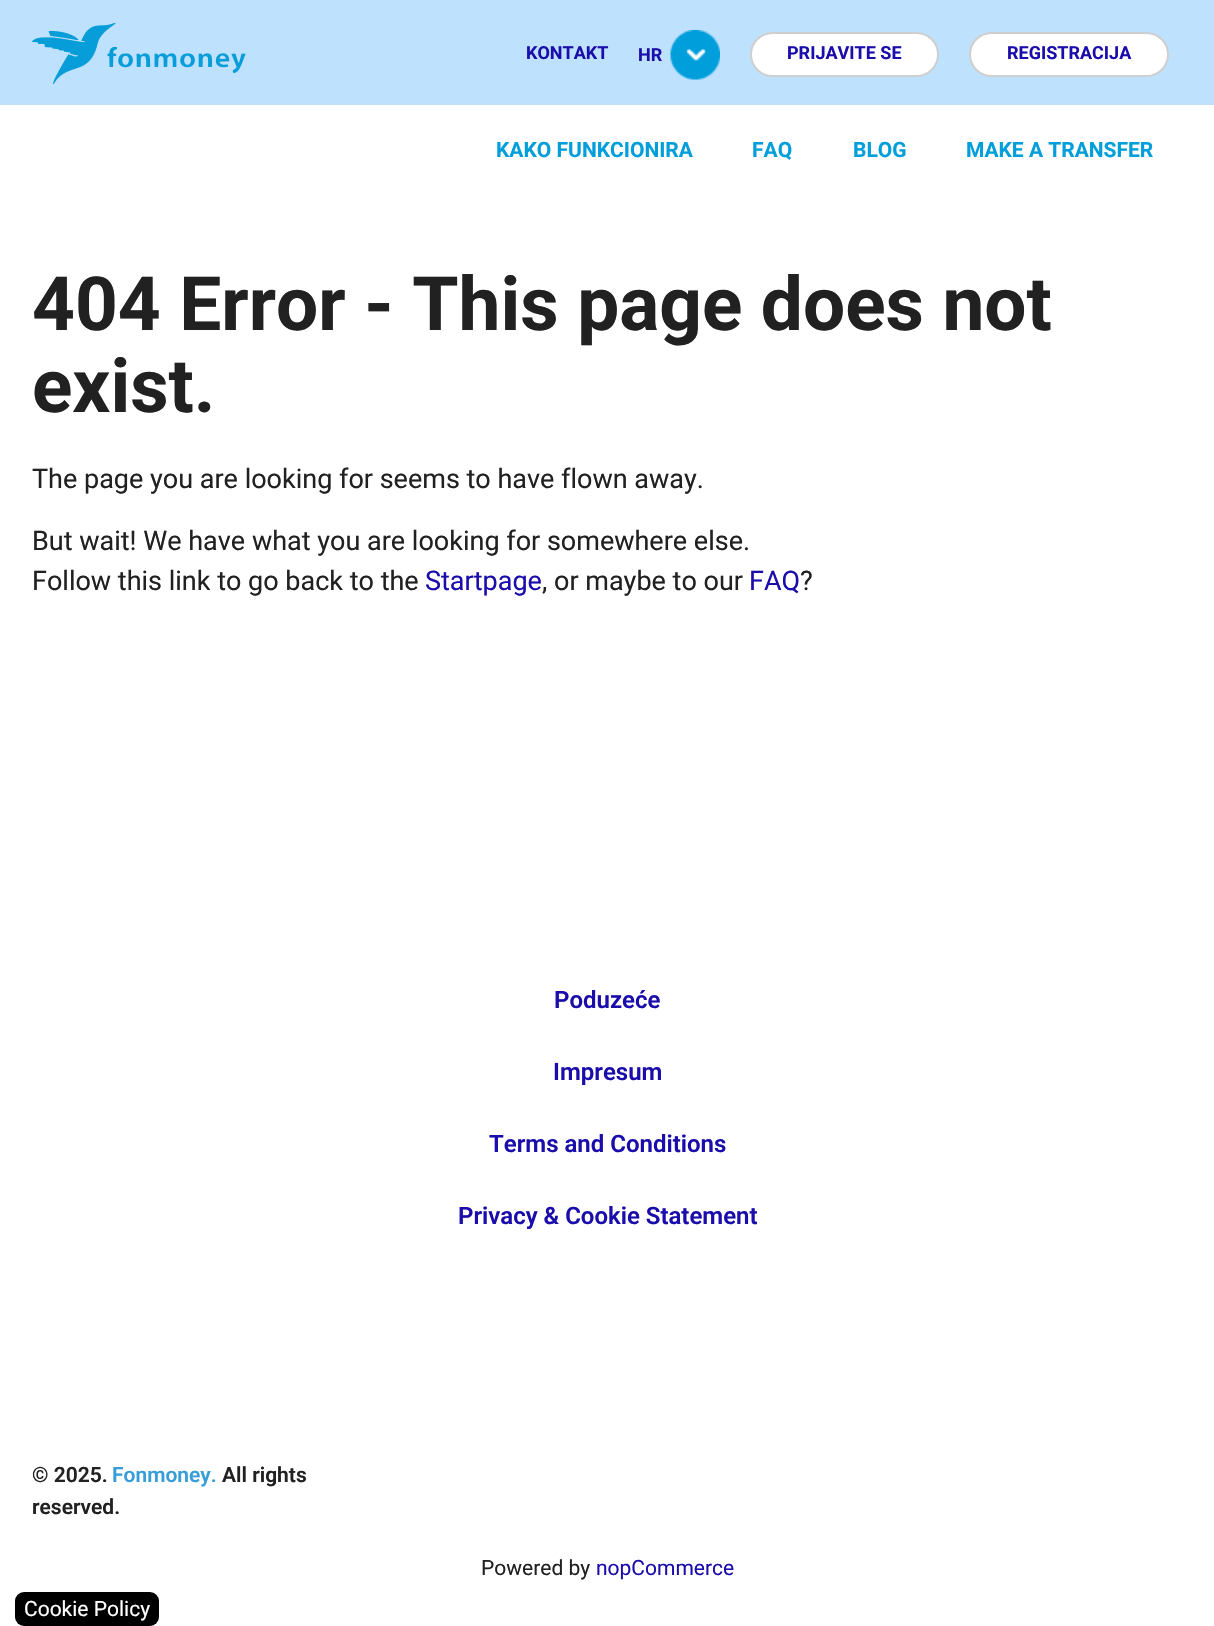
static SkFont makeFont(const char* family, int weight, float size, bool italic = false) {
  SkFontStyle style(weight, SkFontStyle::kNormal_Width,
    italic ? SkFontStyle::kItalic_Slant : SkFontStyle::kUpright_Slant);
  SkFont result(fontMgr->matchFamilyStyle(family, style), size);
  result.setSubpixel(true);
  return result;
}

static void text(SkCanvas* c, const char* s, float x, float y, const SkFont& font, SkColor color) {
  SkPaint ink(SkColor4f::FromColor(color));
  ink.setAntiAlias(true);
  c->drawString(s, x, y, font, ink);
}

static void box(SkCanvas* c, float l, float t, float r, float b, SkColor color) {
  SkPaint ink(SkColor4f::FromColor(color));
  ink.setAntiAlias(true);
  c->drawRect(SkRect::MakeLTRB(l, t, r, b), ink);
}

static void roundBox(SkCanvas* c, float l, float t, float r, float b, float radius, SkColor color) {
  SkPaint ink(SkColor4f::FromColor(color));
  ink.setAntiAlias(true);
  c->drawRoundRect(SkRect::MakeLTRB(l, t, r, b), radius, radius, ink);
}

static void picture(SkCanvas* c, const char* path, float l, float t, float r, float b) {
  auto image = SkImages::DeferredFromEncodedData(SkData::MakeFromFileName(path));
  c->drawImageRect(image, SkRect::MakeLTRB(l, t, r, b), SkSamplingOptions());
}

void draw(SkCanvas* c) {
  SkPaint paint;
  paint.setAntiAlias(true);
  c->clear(0xffffffff);
  box(c, 0, 0, 1214, 105, 0xffbee1fe);
  picture(c, "img_01.png", 32, 23, 246, 84);
  SkFont face1 = makeFont("Roboto", 700, 18);
  text(c, "KONTAKT", 526, 59, face1, 0xff1a0dab);
  text(c, "HR", 638, 61, face1, 0xff1a0dab);
  picture(c, "img_02.png", 670, 30, 720, 80);
  paint.setColor(0xffffffff);
  c->drawRoundRect(SkRect::MakeLTRB(751, 33, 938, 76), 21.5f, 21.5f, paint);
  paint.setStyle(SkPaint::kStroke_Style);
  paint.setStrokeWidth(2);
  paint.setColor(0xffcfcfcf);
  c->drawRoundRect(SkRect::MakeLTRB(751, 33, 938, 76), 21.5f, 21.5f, paint);
  text(c, "PRIJAVITE SE", 787, 59, face1, 0xff1a0dab);
  paint.setStyle(SkPaint::kFill_Style);
  paint.setColor(0xffffffff);
  c->drawRoundRect(SkRect::MakeLTRB(970, 33, 1168, 76), 21.5f, 21.5f, paint);
  paint.setStyle(SkPaint::kStroke_Style);
  paint.setColor(0xffcfcfcf);
  c->drawRoundRect(SkRect::MakeLTRB(970, 33, 1168, 76), 21.5f, 21.5f, paint);
  text(c, "REGISTRACIJA", 1007, 59, face1, 0xff1a0dab);
  SkFont face2 = makeFont("Roboto", 700, 21);
  text(c, "KAKO FUNKCIONIRA", 496, 157, face2, 0xff009eda);
  text(c, "FAQ", 752, 157, face2, 0xff009eda);
  text(c, "BLOG", 853, 157, face2, 0xff009eda);
  text(c, "MAKE A TRANSFER", 966, 157, face2, 0xff009eda);
  SkFont face3 = makeFont("Roboto", 700, 74.75f);
  text(c, "404 Error - This page does not", 32, 330, face3, 0xff212121);
  text(c, "exist.", 32, 412, face3, 0xff212121);
  SkFont face4 = makeFont("Roboto", 400, 27);
  text(c, "The page you are looking for seems to have flown away.", 32, 488, face4, 0xff212121);
  text(c, "But wait! We have what you are looking for somewhere else.", 32, 550, face4, 0xff212121);
  text(c, "Follow this link to go back to the", 32, 590, face4, 0xff212121);
  text(c, "Startpage", 425, 590, face4, 0xff1a0dab);
  text(c, ", or maybe to our", 542, 590, face4, 0xff212121);
  text(c, "FAQ", 749, 590, face4, 0xff1a0dab);
  text(c, "?", 800, 590, face4, 0xff212121);
  SkFont face5 = makeFont("Roboto", 600, 24);
  text(c, "Poduzeće", 554, 1008, face5, 0xff1a0dab);
  text(c, "Impresum", 553, 1080, face5, 0xff1a0dab);
  text(c, "Terms and Conditions", 489, 1152, face5, 0xff1a0dab);
  text(c, "Privacy & Cookie Statement", 458, 1224, face5, 0xff1a0dab);
  SkFont face6 = makeFont("Roboto", 600, 21);
  text(c, "© 2025.", 32, 1482, face6, 0xff212121);
  text(c, "Fonmoney.", 112, 1482, face6, 0xff379ed9);
  text(c, "All rights", 222, 1482, face6, 0xff212121);
  text(c, "reserved.", 32, 1514, face6, 0xff212121);
  roundBox(c, 15, 1592, 159, 1626, 9, 0xff000000);
  SkFont face7 = makeFont("Roboto", 400, 21);
  text(c, "Cookie Policy", 24, 1616, face7, 0xffffffff);
  text(c, "Powered by", 481, 1575, face7, 0xff212121);
  text(c, "nopCommerce", 596, 1575, face7, 0xff1a0dab);
}
